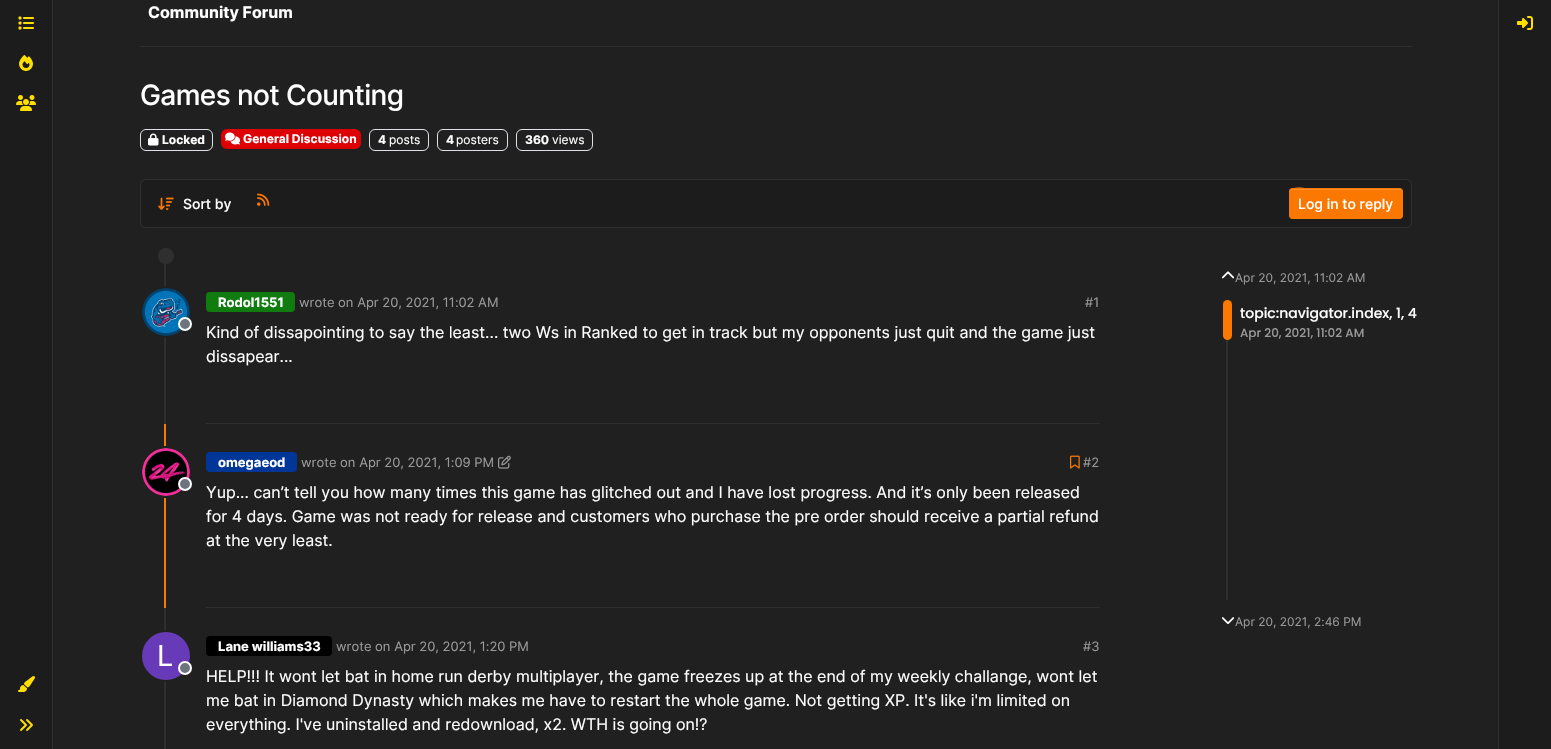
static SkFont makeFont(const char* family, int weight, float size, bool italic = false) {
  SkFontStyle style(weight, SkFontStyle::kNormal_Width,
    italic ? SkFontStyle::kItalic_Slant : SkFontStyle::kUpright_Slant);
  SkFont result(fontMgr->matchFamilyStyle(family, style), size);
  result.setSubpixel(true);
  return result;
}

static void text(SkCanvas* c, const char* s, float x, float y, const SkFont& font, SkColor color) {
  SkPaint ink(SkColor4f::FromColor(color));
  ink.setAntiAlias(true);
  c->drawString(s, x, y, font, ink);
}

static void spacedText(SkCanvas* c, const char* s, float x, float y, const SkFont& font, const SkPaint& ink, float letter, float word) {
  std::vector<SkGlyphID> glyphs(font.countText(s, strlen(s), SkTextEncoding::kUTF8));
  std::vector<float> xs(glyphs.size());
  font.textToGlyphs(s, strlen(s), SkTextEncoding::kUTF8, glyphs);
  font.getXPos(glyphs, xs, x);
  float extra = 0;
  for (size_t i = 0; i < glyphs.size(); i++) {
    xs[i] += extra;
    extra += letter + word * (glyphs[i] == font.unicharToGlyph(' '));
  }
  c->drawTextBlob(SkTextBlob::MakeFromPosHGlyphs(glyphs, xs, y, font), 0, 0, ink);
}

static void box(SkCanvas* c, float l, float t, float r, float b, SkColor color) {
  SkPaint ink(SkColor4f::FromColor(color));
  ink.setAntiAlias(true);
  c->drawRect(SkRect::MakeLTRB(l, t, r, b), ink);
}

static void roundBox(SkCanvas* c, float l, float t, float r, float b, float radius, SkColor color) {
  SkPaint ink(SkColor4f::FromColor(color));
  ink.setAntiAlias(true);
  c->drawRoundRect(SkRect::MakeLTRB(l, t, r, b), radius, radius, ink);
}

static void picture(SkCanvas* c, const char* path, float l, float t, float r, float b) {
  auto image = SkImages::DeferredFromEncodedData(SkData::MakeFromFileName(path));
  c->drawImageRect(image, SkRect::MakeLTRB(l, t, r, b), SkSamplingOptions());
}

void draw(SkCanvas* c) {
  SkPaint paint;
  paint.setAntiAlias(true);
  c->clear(0xff202020);
  box(c, 0, 0, 52, 749, 0xff1d1c1c);
  box(c, 52, 0, 53, 749, 0xff2f2f2f);
  picture(c, "img_01.png", 18, 16, 34, 30);
  picture(c, "img_02.png", 19, 55, 33, 71);
  picture(c, "img_03.png", 16, 95, 36, 111);
  picture(c, "img_04.png", 18, 676, 35, 692);
  picture(c, "img_05.png", 20, 719, 33, 731);
  box(c, 140, 46, 1412, 47, 0xff2f2f2f);
  SkFont face1 = makeFont("Inter", 700, 16);
  text(c, "Community Forum", 148, 18, face1, 0xffffffff);
  SkFont face2 = makeFont("Inter", 500, 28);
  paint.setColor(0xffffffff);
  spacedText(c, "Games not Counting", 140, 105, face2, paint, -0.6f, 0);
  paint.setStyle(SkPaint::kStroke_Style);
  paint.setStrokeWidth(1);
  paint.setColor(0xffdee2e6);
  c->drawRoundRect(SkRect::MakeLTRB(140.5f, 129.5f, 212.5f, 150.5f), 5.5f, 5.5f, paint);
  picture(c, "img_06.png", 148, 133, 159, 146);
  SkFont face3 = makeFont("Inter", 700, 12);
  text(c, "Locked", 162, 144, face3, 0xffffffff);
  roundBox(c, 221, 129, 361, 149, 6, 0xffdd0005);
  picture(c, "img_07.png", 225, 132, 240, 145);
  text(c, "General Discussion", 243, 143, face3, 0xffffffff);
  c->drawRoundRect(SkRect::MakeLTRB(369.5f, 129.5f, 428.5f, 150.5f), 5.5f, 5.5f, paint);
  text(c, "4", 378, 144, face3, 0xffffffff);
  SkFont face4 = makeFont("Inter", 400, 12);
  text(c, "posts", 389, 144, face4, 0xffffffff);
  c->drawRoundRect(SkRect::MakeLTRB(437.5f, 129.5f, 507.5f, 150.5f), 5.5f, 5.5f, paint);
  text(c, "4", 446, 144, face3, 0xffffffff);
  text(c, "posters", 456, 144, face4, 0xffffffff);
  c->drawRoundRect(SkRect::MakeLTRB(516.5f, 129.5f, 592.5f, 150.5f), 5.5f, 5.5f, paint);
  text(c, "360", 525, 144, face3, 0xffffffff);
  text(c, "views", 552, 144, face4, 0xffffffff);
  paint.setStyle(SkPaint::kFill_Style);
  paint.setColor(0xff1d1c1c);
  c->drawRoundRect(SkRect::MakeLTRB(140.5f, 179.5f, 1411.5f, 227.5f), 5.5f, 5.5f, paint);
  paint.setStyle(SkPaint::kStroke_Style);
  paint.setColor(0xff2f2f2f);
  c->drawRoundRect(SkRect::MakeLTRB(140.5f, 179.5f, 1411.5f, 227.5f), 5.5f, 5.5f, paint);
  picture(c, "img_08.png", 158, 197, 174, 210);
  SkFont face5 = makeFont("Inter", 500, 14);
  text(c, "Sort by", 183, 209, face5, 0xffffffff);
  picture(c, "img_09.png", 257, 193, 270, 206);
  roundBox(c, 1289, 188, 1403, 219, 4, 0xfffb7800);
  paint.setStyle(SkPaint::kFill_Style);
  paint.setColor(0xfffc8c26);
  c->drawPath(SkPathBuilder().moveTo(1293, 190).lineTo(1399, 190).cubicTo(1401, 190, 1402, 191, 1402, 193).cubicTo(1402, 191, 1401, 189, 1399, 189).lineTo(1311, 189).cubicTo(1309, 189, 1290, 184, 1290, 193).cubicTo(1290, 191, 1291, 190, 1293, 190).close().detach(), paint);
  paint.setStyle(SkPaint::kStroke_Style);
  paint.setColor(0xfffb7800);
  c->drawRoundRect(SkRect::MakeLTRB(1289.5f, 188.5f, 1402.5f, 218.5f), 3.5f, 3.5f, paint);
  text(c, "Log in to reply", 1298, 209, face5, 0xffffffff);
  box(c, 164, 264, 166, 424, 0xff2f2f2f);
  paint.setStyle(SkPaint::kFill_Style);
  paint.setColor(0xff2f2f2f);
  c->drawCircle(166, 256, 8, paint);
  paint.setColor(0xff202020);
  c->drawCircle(166, 312, 25, paint);
  paint.setStyle(SkPaint::kStroke_Style);
  paint.setStrokeWidth(2);
  c->drawCircle(166, 312, 25, paint);
  picture(c, "img_10.png", 142, 288, 190, 336);
  paint.setStyle(SkPaint::kFill_Style);
  paint.setColor(0xff6c757d);
  c->drawCircle(185, 324, 6, paint);
  paint.setStyle(SkPaint::kStroke_Style);
  paint.setColor(0xffffffff);
  c->drawCircle(185, 324, 6, paint);
  roundBox(c, 206, 292, 295, 312, 4, 0xff107c10);
  SkFont face6 = makeFont("Inter", 700, 13);
  text(c, "Rodol1551", 218, 307, face6, 0xffffffff);
  SkFont face7 = makeFont("Inter", 400, 13);
  text(c, "wrote on Apr 20, 2021, 11:02 AM", 299, 307, face7, 0xff999999);
  text(c, "#1", 1085, 307, face7, 0xff999999);
  SkFont face8 = makeFont("Inter", 400, 16);
  text(c, "Kind of dissapointing to say the least... two Ws in Ranked to get in track but my opponents just quit and the game just", 206, 338, face8, 0xffffffff);
  text(c, "dissapear...", 206, 362, face8, 0xffffffff);
  box(c, 206, 423, 1100, 424, 0xff2f2f2f);
  box(c, 164, 424, 166, 608, 0xfffb7800);
  paint.setStyle(SkPaint::kFill_Style);
  paint.setColor(0xff202020);
  c->drawCircle(166, 472, 25, paint);
  paint.setStyle(SkPaint::kStroke_Style);
  c->drawCircle(166, 472, 25, paint);
  picture(c, "img_11.png", 142, 448, 190, 496);
  paint.setStyle(SkPaint::kFill_Style);
  paint.setColor(0xff6c757d);
  c->drawCircle(185, 484, 6, paint);
  paint.setStyle(SkPaint::kStroke_Style);
  paint.setColor(0xffffffff);
  c->drawCircle(185, 484, 6, paint);
  roundBox(c, 206, 452, 297, 472, 4, 0xff003697);
  text(c, "omegaeod", 218, 467, face6, 0xffffffff);
  text(c, "wrote on Apr 20, 2021, 1:09 PM", 301, 467, face7, 0xff999999);
  picture(c, "img_12.png", 498, 455, 511, 469);
  picture(c, "img_13.png", 1070, 455, 1080, 469);
  text(c, "#2", 1083, 467, face7, 0xff999999);
  text(c, "Yup... can’t tell you how many times this game has glitched out and I have lost progress. And it’s only been released", 206, 498, face8, 0xffffffff);
  text(c, "for 4 days. Game was not ready for release and customers who purchase the pre order should receive a partial refund", 206, 522, face8, 0xffffffff);
  text(c, "at the very least.", 206, 546, face8, 0xffffffff);
  box(c, 206, 607, 1100, 608, 0xff2f2f2f);
  box(c, 164, 608, 166, 749, 0xff2f2f2f);
  paint.setColor(0xff202020);
  c->drawCircle(166, 656, 25, paint);
  paint.setStyle(SkPaint::kFill_Style);
  paint.setColor(0xff673ab7);
  c->drawCircle(166, 656, 24, paint);
  SkFont face9 = makeFont("Inter", 400, 29);
  text(c, "L", 157, 666, face9, 0xffffffff);
  paint.setColor(0xff6c757d);
  c->drawCircle(185, 668, 6, paint);
  paint.setStyle(SkPaint::kStroke_Style);
  paint.setColor(0xffffffff);
  c->drawCircle(185, 668, 6, paint);
  roundBox(c, 206, 636, 332, 656, 4, 0xff000000);
  text(c, "Lane williams33", 218, 651, face6, 0xffffffff);
  text(c, "wrote on Apr 20, 2021, 1:20 PM", 336, 651, face7, 0xff999999);
  text(c, "#3", 1083, 651, face7, 0xff999999);
  text(c, "HELP!!! It wont let bat in home run derby multiplayer, the game freezes up at the end of my weekly challange, wont let", 206, 682, face8, 0xffffffff);
  text(c, "me bat in Diamond Dynasty which makes me have to restart the whole game. Not getting XP. It's like i'm limited on", 206, 706, face8, 0xffffffff);
  text(c, "everything. I've uninstalled and redownload, x2. WTH is going on!?", 206, 730, face8, 0xffffffff);
  picture(c, "img_14.png", 1221, 271, 1235, 279);
  text(c, "Apr 20, 2021, 11:02 AM", 1235, 282, face4, 0xff999999);
  box(c, 1226, 300, 1228, 600, 0xff2f2f2f);
  roundBox(c, 1223, 300, 1232, 340, 4.5f, 0xfffb7900);
  SkFont face10 = makeFont("Poppins", 500, 14);
  text(c, "topic:navigator.index, 1, 4", 1240, 318, face10, 0xffffffff);
  SkFont face11 = makeFont("Poppins", 500, 12);
  text(c, "Apr 20, 2021, 11:02 AM", 1240, 337, face11, 0xff999999);
  picture(c, "img_15.png", 1222, 617, 1234, 624);
  text(c, "Apr 20, 2021, 2:46 PM", 1235, 626, face4, 0xff999999);
  box(c, 1499, 0, 1551, 749, 0xff1d1c1c);
  box(c, 1498, 0, 1499, 749, 0xff2f2f2f);
  picture(c, "img_16.png", 1517, 16, 1533, 30);
}
